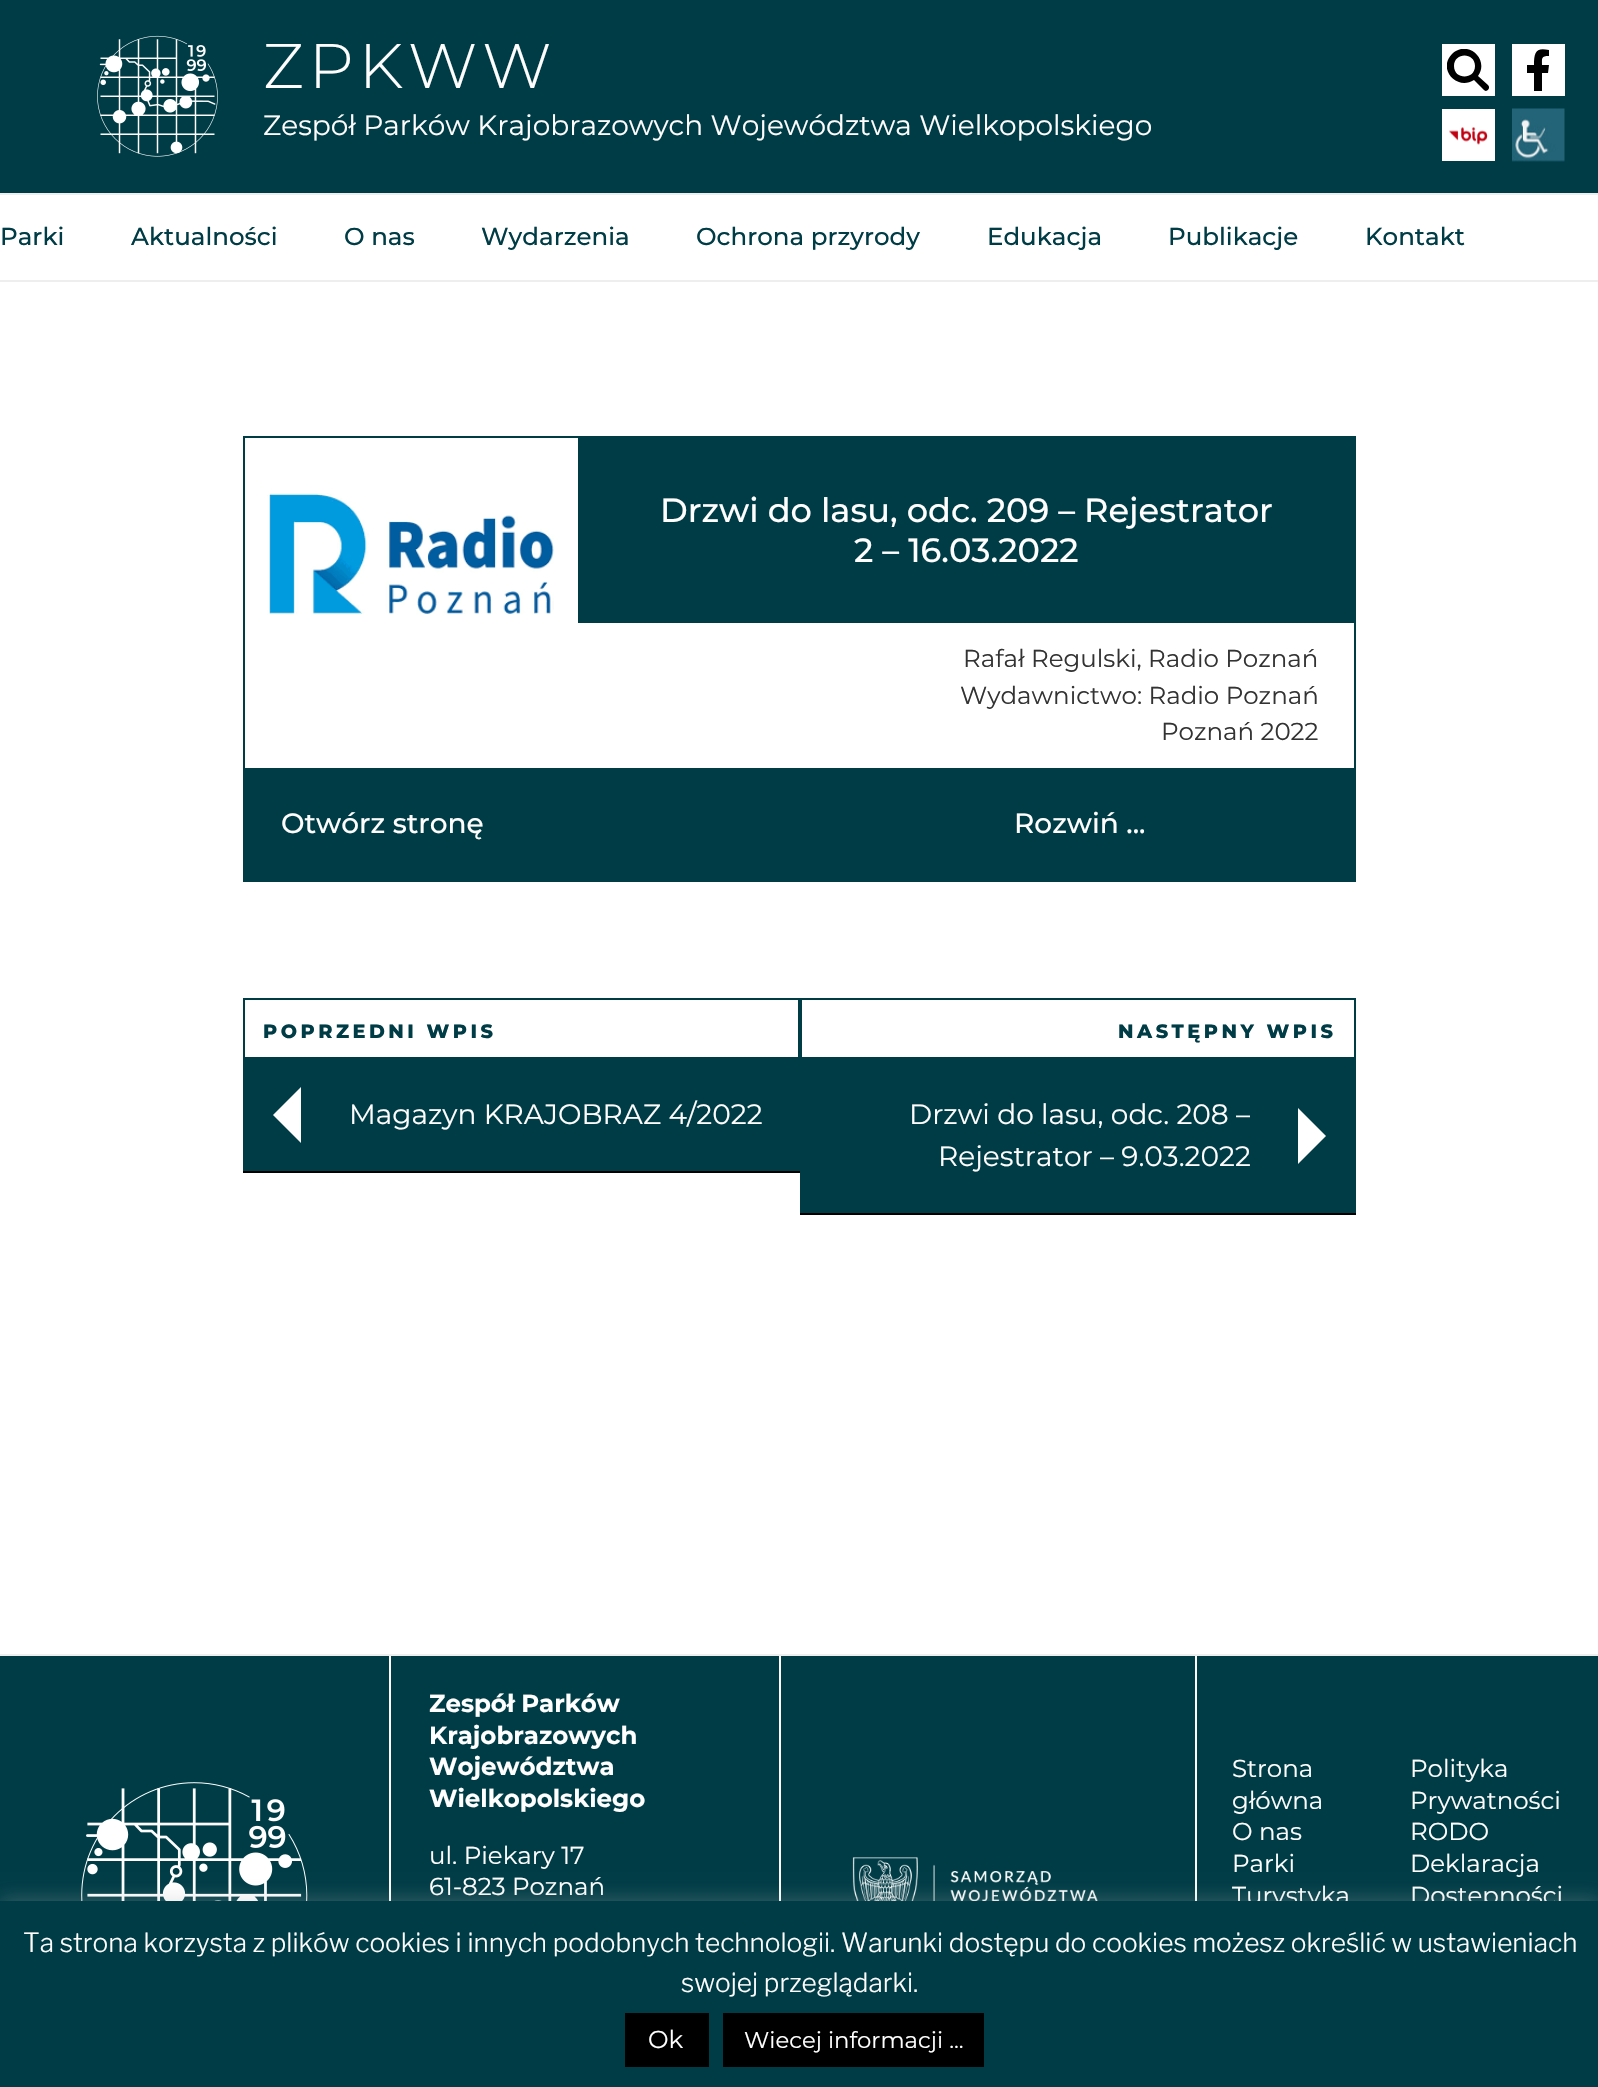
static SkFont makeFont(const char* family, int weight, float size, bool italic = false) {
  SkFontStyle style(weight, SkFontStyle::kNormal_Width,
    italic ? SkFontStyle::kItalic_Slant : SkFontStyle::kUpright_Slant);
  SkFont result(fontMgr->matchFamilyStyle(family, style), size);
  result.setSubpixel(true);
  return result;
}

static void text(SkCanvas* c, const char* s, float x, float y, const SkFont& font, SkColor color) {
  SkPaint ink(SkColor4f::FromColor(color));
  ink.setAntiAlias(true);
  c->drawString(s, x, y, font, ink);
}

static void spacedText(SkCanvas* c, const char* s, float x, float y, const SkFont& font, const SkPaint& ink, float letter, float word) {
  std::vector<SkGlyphID> glyphs(font.countText(s, strlen(s), SkTextEncoding::kUTF8));
  std::vector<float> xs(glyphs.size());
  font.textToGlyphs(s, strlen(s), SkTextEncoding::kUTF8, glyphs);
  font.getXPos(glyphs, xs, x);
  float extra = 0;
  for (size_t i = 0; i < glyphs.size(); i++) {
    xs[i] += extra;
    extra += letter + word * (glyphs[i] == font.unicharToGlyph(' '));
  }
  c->drawTextBlob(SkTextBlob::MakeFromPosHGlyphs(glyphs, xs, y, font), 0, 0, ink);
}

static void box(SkCanvas* c, float l, float t, float r, float b, SkColor color) {
  SkPaint ink(SkColor4f::FromColor(color));
  ink.setAntiAlias(true);
  c->drawRect(SkRect::MakeLTRB(l, t, r, b), ink);
}

static void picture(SkCanvas* c, const char* path, float l, float t, float r, float b) {
  auto image = SkImages::DeferredFromEncodedData(SkData::MakeFromFileName(path));
  c->drawImageRect(image, SkRect::MakeLTRB(l, t, r, b), SkSamplingOptions());
}

void draw(SkCanvas* c) {
  SkPaint paint;
  paint.setAntiAlias(true);
  c->clear(0xffffffff);
  box(c, 0, 0, 1598, 193, 0xff003c46);
  picture(c, "img_01.png", 97, 35, 218, 157);
  SkFont face1 = makeFont("Montserrat", 300, 63);
  paint.setColor(0xffffffff);
  spacedText(c, "ZPKWW", 263, 88, face1, paint, 5, 0);
  SkFont face2 = makeFont("Montserrat", 400, 28);
  text(c, "Zespół Parków Krajobrazowych Województwa Wielkopolskiego", 263, 135, face2, 0xffffffff);
  box(c, 1442, 44, 1495, 96, 0xffffffff);
  c->save();
  c->clipRect(SkRect::MakeLTRB(1447, 49, 1489, 91));
  paint.setColor(0xff000000);
  c->drawPath(SkPathBuilder().moveTo(1488, 85).lineTo(1478, 76).cubicTo(1490, 59, 1467, 39, 1452, 54).cubicTo(1437, 69, 1457, 91, 1474, 80).lineTo(1484, 90).cubicTo(1487, 93, 1491, 88, 1488, 85).close().moveTo(1454, 66).cubicTo(1454, 52, 1475, 52, 1475, 66).cubicTo(1475, 80, 1454, 80, 1454, 66).close().detach(), paint);
  c->restore();
  box(c, 1512, 44, 1565, 96, 0xffffffff);
  c->drawPath(SkPathBuilder().moveTo(1548, 73).lineTo(1549, 65).lineTo(1542, 65).cubicTo(1542, 58, 1541, 56, 1549, 56).lineTo(1549, 50).cubicTo(1536, 47, 1534, 52, 1534, 65).lineTo(1527, 65).lineTo(1527, 73).lineTo(1534, 73).lineTo(1534, 91).lineTo(1542, 91).lineTo(1542, 73).close().detach(), paint);
  box(c, 1442, 109, 1495, 161, 0xffffffff);
  picture(c, "img_02.png", 1449, 127, 1488, 145);
  picture(c, "img_03.png", 1512, 108, 1565, 162);
  box(c, 0, 193, 1598, 195, 0xffeeeeee);
  box(c, 0, 280, 1598, 282, 0xffeeeeee);
  SkFont face3 = makeFont("Montserrat", 500, 24.5f);
  text(c, "Parki", 0, 245, face3, 0xff003c46);
  text(c, "Aktualności", 131, 245, face3, 0xff003c46);
  text(c, "O nas", 344, 245, face3, 0xff003c46);
  text(c, "Wydarzenia", 481, 245, face3, 0xff003c46);
  text(c, "Ochrona przyrody", 696, 245, face3, 0xff003c46);
  text(c, "Edukacja", 987, 245, face3, 0xff003c46);
  text(c, "Publikacje", 1168, 245, face3, 0xff003c46);
  text(c, "Kontakt", 1365, 245, face3, 0xff003c46);
  paint.setStyle(SkPaint::kStroke_Style);
  paint.setStrokeWidth(2);
  paint.setColor(0xff003c46);
  c->drawRect(SkRect::MakeLTRB(244, 437, 1355, 881), paint);
  picture(c, "img_04.png", 267, 493, 554, 615);
  box(c, 578, 438, 1354, 623, 0xff003c46);
  SkFont face4 = makeFont("Montserrat", 500, 33.6f);
  text(c, "Drzwi do lasu, odc. 209 – Rejestrator", 660, 522, face4, 0xffffffff);
  text(c, "2 – 16.03.2022", 854, 562, face4, 0xffffffff);
  SkFont face5 = makeFont("Montserrat", 400, 24.5f);
  text(c, "Rafał Regulski, Radio Poznań", 963, 667, face5, 0xff333333);
  text(c, "Wydawnictwo: Radio Poznań", 960, 704, face5, 0xff333333);
  text(c, "Poznań 2022", 1161, 740, face5, 0xff333333);
  box(c, 245, 768, 1354, 880, 0xff003c46);
  SkFont face6 = makeFont("Montserrat", 500, 28);
  text(c, "Otwórz stronę", 281, 833, face6, 0xffffffff);
  text(c, "Rozwiń ...", 1014, 833, face6, 0xffffffff);
  box(c, 243, 1059, 800, 1171, 0xff003c46);
  paint.setStyle(SkPaint::kFill_Style);
  paint.setColor(0xff000000);
  c->drawPath(SkPathBuilder().moveTo(243, 999).lineTo(243, 1173).lineTo(800, 1173).lineTo(800, 999).lineTo(800, 1171).lineTo(243, 1171).close().detach(), paint);
  paint.setStyle(SkPaint::kStroke_Style);
  paint.setColor(0xff003c46);
  c->drawRect(SkRect::MakeLTRB(244, 999, 799, 1058), paint);
  SkFont face7 = makeFont("Montserrat", 800, 19.25f);
  paint.setStyle(SkPaint::kFill_Style);
  spacedText(c, "POPRZEDNI WPIS", 263, 1038, face7, paint, 3.5f, 0);
  paint.setColor(0xffffffff);
  c->drawPath(SkPathBuilder().moveTo(301, 1087).lineTo(301, 1143).lineTo(273, 1115).close().detach(), paint);
  text(c, "Magazyn KRAJOBRAZ 4/2022", 349, 1124, face2, 0xffffffff);
  box(c, 800, 1059, 1356, 1213, 0xff003c46);
  box(c, 800, 1213, 1356, 1215, 0xff000000);
  paint.setStyle(SkPaint::kStroke_Style);
  paint.setColor(0xff003c46);
  c->drawRect(SkRect::MakeLTRB(801, 999, 1355, 1058), paint);
  paint.setStyle(SkPaint::kFill_Style);
  spacedText(c, "NASTĘPNY WPIS", 1118, 1038, face7, paint, 3.5f, 0);
  text(c, "Drzwi do lasu, odc. 208 –", 909, 1124, face2, 0xffffffff);
  text(c, "Rejestrator – 9.03.2022", 938, 1166, face2, 0xffffffff);
  paint.setColor(0xffffffff);
  c->drawPath(SkPathBuilder().moveTo(1298, 1164).lineTo(1298, 1108).lineTo(1326, 1136).close().detach(), paint);
  box(c, 0, 1656, 1598, 1901, 0xff003c46);
  box(c, 0, 1654, 1598, 1656, 0xffeeeeee);
  box(c, 389, 1656, 391, 1901, 0xffffffff);
  picture(c, "img_05.png", 81, 1782, 308, 1901);
  box(c, 779, 1656, 781, 1901, 0xffffffff);
  SkFont face8 = makeFont("Montserrat", 700, 24.5f);
  text(c, "Zespół Parków", 429, 1712, face8, 0xffffffff);
  text(c, "Krajobrazowych", 429, 1744, face8, 0xffffffff);
  text(c, "Województwa", 429, 1775, face8, 0xffffffff);
  text(c, "Wielkopolskiego", 429, 1807, face8, 0xffffffff);
  text(c, "ul. Piekary 17", 429, 1864, face5, 0xffffffff);
  text(c, "61-823 Poznań", 429, 1895, face5, 0xffffffff);
  box(c, 1195, 1656, 1197, 1901, 0xffffffff);
  picture(c, "img_06.png", 852, 1857, 1098, 1901);
  text(c, "Strona", 1232, 1777, face5, 0xffffffff);
  text(c, "główna", 1232, 1809, face5, 0xffffffff);
  text(c, "Polityka", 1410, 1777, face5, 0xffffffff);
  text(c, "Prywatności", 1410, 1809, face5, 0xffffffff);
  text(c, "O nas", 1232, 1840, face5, 0xffffffff);
  text(c, "RODO", 1410, 1840, face5, 0xffffffff);
  text(c, "Parki", 1232, 1872, face5, 0xffffffff);
  text(c, "Deklaracja", 1410, 1872, face5, 0xffffffff);
  text(c, "Dostępności", 1410, 1904, face5, 0xffffffff);
  text(c, "Turystyka", 1232, 1904, face5, 0xffffffff);
  paint.setColor(0x4dacabab);
  paint.setMaskFilter(SkMaskFilter::MakeBlur(kNormal_SkBlurStyle, 9));
  c->drawRect(SkRect::MakeLTRB(0, 1899, 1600, 2086), paint);
  paint.setMaskFilter(nullptr);
  box(c, 0, 1901, 1598, 2087, 0xff003c46);
  SkFont face9 = makeFont("Libre Franklin", 100, 26.25f);
  text(c, "Ta strona korzysta z plików cookies i innych podobnych technologii. Warunki dostępu do cookies możesz określić w ustawieniach", 23, 1952, face9, 0xffffffff);
  text(c, "swojej przeglądarki.", 681, 1992, face9, 0xffffffff);
  box(c, 625, 2013, 709, 2067, 0xff000000);
  text(c, "Ok", 648, 2048, face5, 0xffffffff);
  box(c, 723, 2013, 984, 2067, 0xff000000);
  SkFont face10 = makeFont("Montserrat", 400, 22.75f);
  text(c, "Wiecej informacji ...", 744, 2048, face10, 0xffffffff);
}
